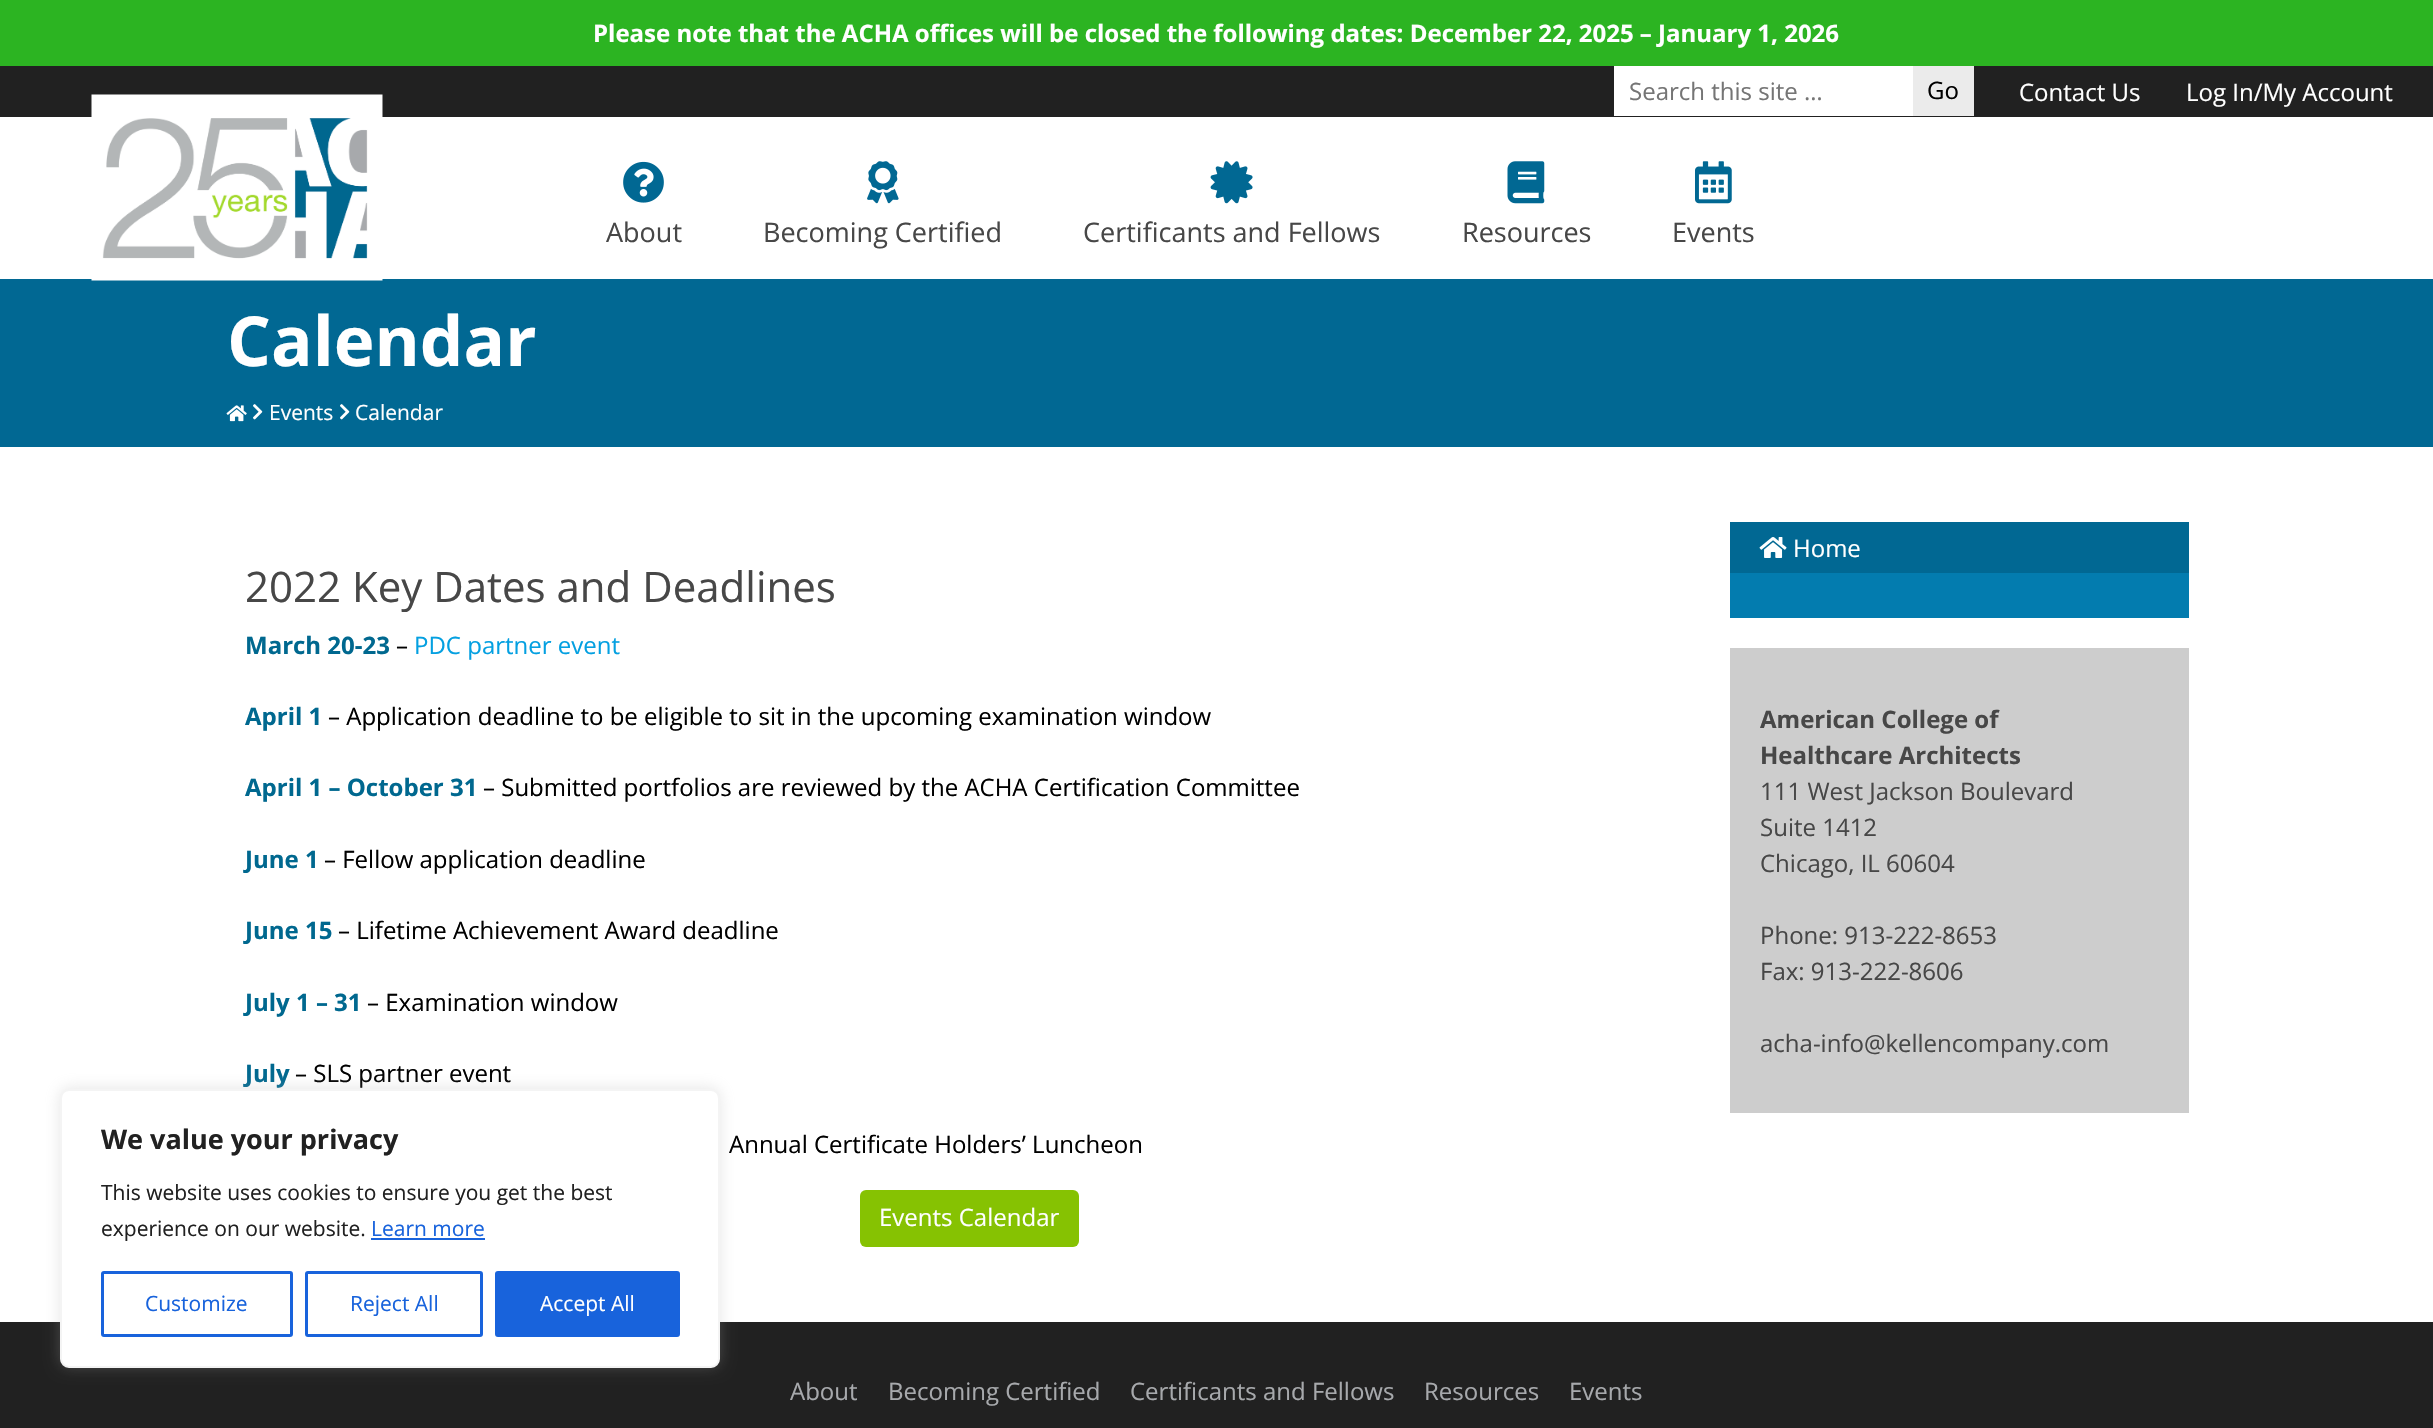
static SkFont makeFont(const char* family, int weight, float size, bool italic = false) {
  SkFontStyle style(weight, SkFontStyle::kNormal_Width,
    italic ? SkFontStyle::kItalic_Slant : SkFontStyle::kUpright_Slant);
  SkFont result(fontMgr->matchFamilyStyle(family, style), size);
  result.setSubpixel(true);
  return result;
}

static void text(SkCanvas* c, const char* s, float x, float y, const SkFont& font, SkColor color) {
  SkPaint ink(SkColor4f::FromColor(color));
  ink.setAntiAlias(true);
  c->drawString(s, x, y, font, ink);
}

static void box(SkCanvas* c, float l, float t, float r, float b, SkColor color) {
  SkPaint ink(SkColor4f::FromColor(color));
  ink.setAntiAlias(true);
  c->drawRect(SkRect::MakeLTRB(l, t, r, b), ink);
}

static void roundBox(SkCanvas* c, float l, float t, float r, float b, float radius, SkColor color) {
  SkPaint ink(SkColor4f::FromColor(color));
  ink.setAntiAlias(true);
  c->drawRoundRect(SkRect::MakeLTRB(l, t, r, b), radius, radius, ink);
}

static void picture(SkCanvas* c, const char* path, float l, float t, float r, float b) {
  auto image = SkImages::DeferredFromEncodedData(SkData::MakeFromFileName(path));
  c->drawImageRect(image, SkRect::MakeLTRB(l, t, r, b), SkSamplingOptions());
}

void draw(SkCanvas* c) {
  SkPaint paint;
  paint.setAntiAlias(true);
  c->clear(0xffffffff);
  box(c, 0, 0, 2433, 66, 0xff2cb422);
  SkFont face1 = makeFont("Open Sans", 700, 24);
  text(c, "Please note that the ACHA offices will be closed the following dates: December 22, 2025 – January 1, 2026", 593, 42, face1, 0xffffffff);
  box(c, 0, 66, 2433, 117, 0xff212121);
  box(c, 1614, 66, 1913, 116, 0xffffffff);
  SkFont face2 = makeFont("Open Sans", 400, 24);
  text(c, "Search this site …", 1629, 100, face2, 0xff757575);
  box(c, 1913, 66, 1974, 116, 0xffebebeb);
  text(c, "Go", 1927, 99, face2, 0xff000000);
  text(c, "Contact Us", 2019, 101, face2, 0xffffffff);
  text(c, "Log In/My Account", 2186, 101, face2, 0xffffffff);
  box(c, 0, 279, 2433, 447, 0xff016893);
  picture(c, "img_01.png", 91, 94, 383, 281);
  picture(c, "img_02.png", 623, 161, 664, 203);
  SkFont face3 = makeFont("Open Sans", 400, 27);
  text(c, "About", 606, 242, face3, 0xff474747);
  picture(c, "img_03.png", 867, 161, 899, 204);
  text(c, "Becoming Certified", 763, 242, face3, 0xff474747);
  picture(c, "img_04.png", 1210, 161, 1253, 204);
  text(c, "Certificants and Fellows", 1083, 242, face3, 0xff474747);
  picture(c, "img_05.png", 1507, 161, 1545, 204);
  text(c, "Resources", 1462, 242, face3, 0xff474747);
  picture(c, "img_06.png", 1695, 161, 1732, 204);
  text(c, "Events", 1672, 242, face3, 0xff474747);
  SkFont face4 = makeFont("Open Sans", 700, 69);
  text(c, "Calendar", 227, 366, face4, 0xffffffff);
  picture(c, "img_07.png", 226, 405, 247, 422);
  picture(c, "img_08.png", 253, 404, 263, 420);
  SkFont face5 = makeFont("Open Sans", 400, 21);
  text(c, "Events", 269, 420, face5, 0xffffffff);
  picture(c, "img_08.png", 340, 404, 350, 420);
  text(c, "Calendar", 355, 420, face5, 0xffffffff);
  SkFont face6 = makeFont("Open Sans", 400, 42);
  text(c, "2022 Key Dates and Deadlines", 245, 602, face6, 0xff474747);
  text(c, "March 20-23", 245, 654, face1, 0xff00688f);
  text(c, "–", 396, 654, face2, 0xff000000);
  text(c, "PDC partner event", 414, 654, face2, 0xff04a0e1);
  text(c, "April 1", 245, 725, face1, 0xff00688f);
  text(c, "– Application deadline to be eligible to sit in the upcoming examination window", 328, 725, face2, 0xff000000);
  text(c, "April 1 – October 31", 245, 796, face1, 0xff00688f);
  text(c, "– Submitted portfolios are reviewed by the ACHA Certification Committee", 483, 796, face2, 0xff000000);
  text(c, "June 1", 245, 868, face1, 0xff00688f);
  text(c, "– Fellow application deadline", 324, 868, face2, 0xff000000);
  text(c, "June 15", 245, 939, face1, 0xff00688f);
  text(c, "– Lifetime Achievement Award deadline", 338, 939, face2, 0xff000000);
  text(c, "July 1 – 31", 245, 1011, face1, 0xff00688f);
  text(c, "– Examination window", 367, 1011, face2, 0xff000000);
  text(c, "July", 245, 1082, face1, 0xff00688f);
  text(c, "– SLS partner event", 295, 1082, face2, 0xff000000);
  text(c, "Annual Certificate Holders’ Luncheon", 729, 1153, face2, 0xff000000);
  roundBox(c, 860, 1190, 1079, 1247, 6, 0xff86c202);
  text(c, "Events Calendar", 879, 1226, face2, 0xffffffff);
  box(c, 1730, 522, 2189, 573, 0xff016893);
  picture(c, "img_09.png", 1759, 537, 1787, 558);
  text(c, "Home", 1793, 557, face2, 0xffffffff);
  box(c, 1730, 573, 2189, 618, 0xff037caf);
  box(c, 1730, 648, 2189, 1113, 0xffcdcdcd);
  text(c, "American College of", 1760, 728, face1, 0xff474747);
  text(c, "Healthcare Architects", 1760, 764, face1, 0xff474747);
  text(c, "111 West Jackson Boulevard", 1760, 800, face2, 0xff474747);
  text(c, "Suite 1412", 1760, 836, face2, 0xff474747);
  text(c, "Chicago, IL 60604", 1760, 872, face2, 0xff474747);
  text(c, "Phone: 913-222-8653", 1760, 944, face2, 0xff474747);
  text(c, "Fax: 913-222-8606", 1760, 980, face2, 0xff474747);
  text(c, "acha-info@kellencompany.com", 1760, 1052, face2, 0xff474747);
  box(c, 0, 1322, 2433, 1428, 0xff212121);
  text(c, "About", 790, 1400, face2, 0xffa7a9ac);
  text(c, "Becoming Certified", 888, 1400, face2, 0xffa7a9ac);
  text(c, "Certificants and Fellows", 1130, 1400, face2, 0xffa7a9ac);
  text(c, "Resources", 1424, 1400, face2, 0xffa7a9ac);
  text(c, "Events", 1569, 1400, face2, 0xffa7a9ac);
  paint.setColor(0x4dacabab);
  paint.setMaskFilter(SkMaskFilter::MakeBlur(kNormal_SkBlurStyle, 7.5f));
  c->drawRoundRect(SkRect::MakeLTRB(60, 1088, 720, 1367), 9, 9, paint);
  paint.setMaskFilter(nullptr);
  paint.setColor(0xffffffff);
  c->drawRoundRect(SkRect::MakeLTRB(61, 1090, 719, 1367), 8, 8, paint);
  paint.setStyle(SkPaint::kStroke_Style);
  paint.setStrokeWidth(2);
  paint.setColor(0xfff4f4f4);
  c->drawRoundRect(SkRect::MakeLTRB(61, 1090, 719, 1367), 8, 8, paint);
  SkFont face7 = makeFont("Open Sans", 700, 27);
  text(c, "We value your privacy", 101, 1149, face7, 0xff212121);
  text(c, "This website uses cookies to ensure you get the best", 101, 1200, face5, 0xff212121);
  text(c, "experience on our website.", 101, 1236, face5, 0xff212121);
  text(c, "Learn more", 371, 1236, face5, 0xff1863dc);
  box(c, 371, 1238, 485, 1240, 0xff1863dc);
  paint.setStrokeWidth(3);
  paint.setColor(0xff1863dc);
  c->drawRoundRect(SkRect::MakeLTRB(102.5f, 1272.5f, 291.5f, 1335.5f), 1.5f, 1.5f, paint);
  text(c, "Customize", 145, 1311, face5, 0xff1863dc);
  c->drawRoundRect(SkRect::MakeLTRB(306.5f, 1272.5f, 481.5f, 1335.5f), 1.5f, 1.5f, paint);
  text(c, "Reject All", 350, 1311, face5, 0xff1863dc);
  paint.setStyle(SkPaint::kFill_Style);
  c->drawRoundRect(SkRect::MakeLTRB(496.5f, 1272.5f, 678.5f, 1335.5f), 1.5f, 1.5f, paint);
  paint.setStyle(SkPaint::kStroke_Style);
  c->drawRoundRect(SkRect::MakeLTRB(496.5f, 1272.5f, 678.5f, 1335.5f), 1.5f, 1.5f, paint);
  text(c, "Accept All", 540, 1311, face5, 0xffffffff);
}
